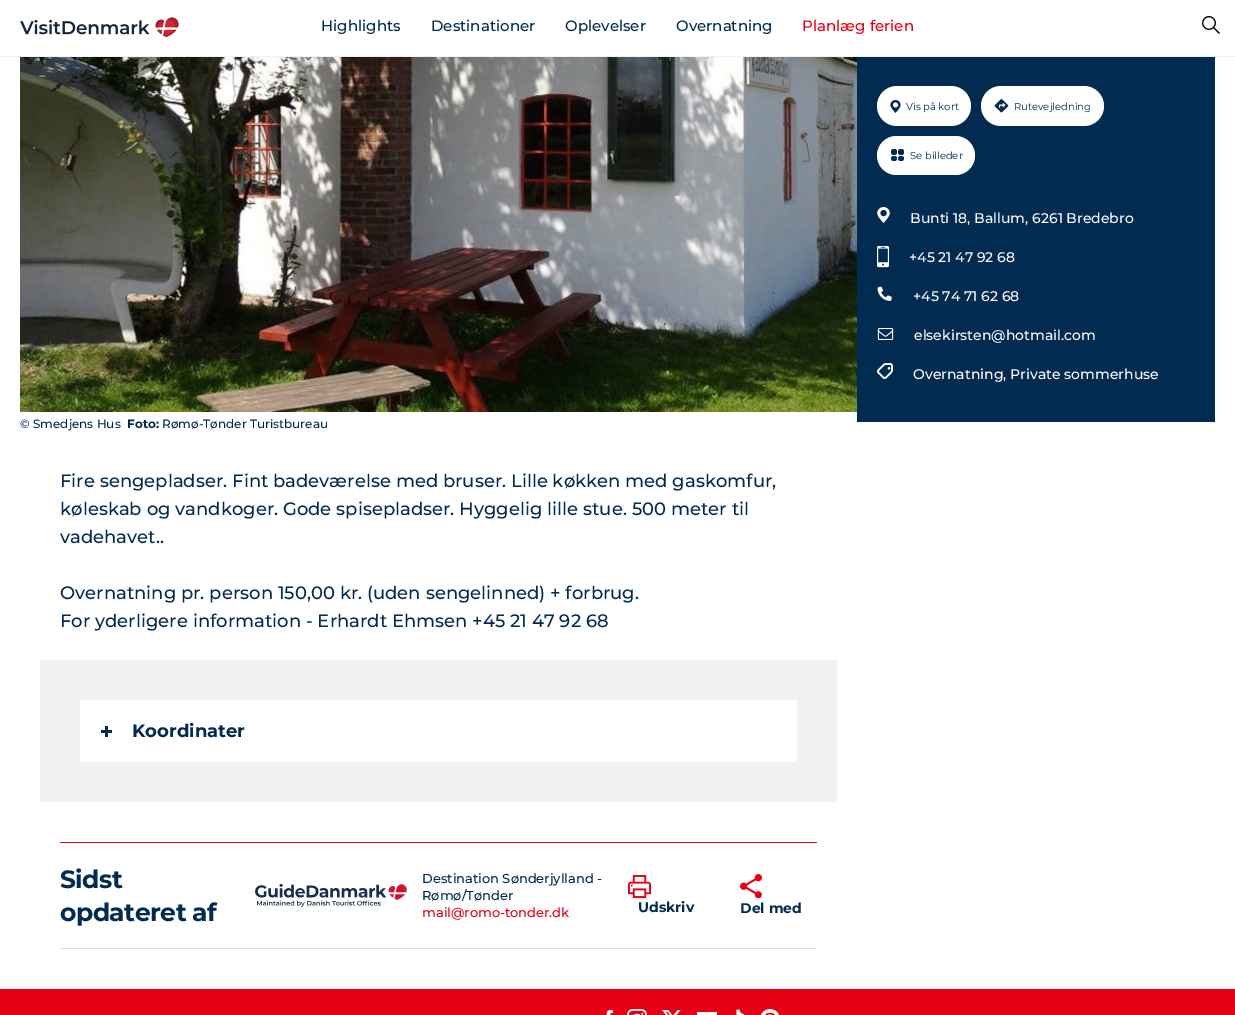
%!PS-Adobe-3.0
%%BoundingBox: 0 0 1235 1015
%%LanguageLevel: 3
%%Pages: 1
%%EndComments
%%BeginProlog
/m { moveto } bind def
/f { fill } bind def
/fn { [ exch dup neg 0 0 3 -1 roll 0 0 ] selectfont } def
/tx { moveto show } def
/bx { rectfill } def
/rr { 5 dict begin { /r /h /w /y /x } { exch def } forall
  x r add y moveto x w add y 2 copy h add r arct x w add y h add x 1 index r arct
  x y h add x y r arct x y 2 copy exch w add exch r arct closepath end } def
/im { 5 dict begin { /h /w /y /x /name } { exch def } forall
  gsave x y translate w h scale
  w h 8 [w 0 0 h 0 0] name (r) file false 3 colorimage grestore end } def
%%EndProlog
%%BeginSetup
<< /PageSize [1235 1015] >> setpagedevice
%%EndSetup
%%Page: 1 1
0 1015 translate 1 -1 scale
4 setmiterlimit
1 setgray
0 0 1235 1015 bx
0.941 0.945 0.953 setrgbcolor
0 56 1235 1 bx
(image0.raw) 20 17 159 20 im
/Montserrat-Medium 15 fn
0.008 0.169 0.322 setrgbcolor
(Highlights) 321 31 tx
(Destinationer) 431 31 tx
(Oplevelser) 565 31 tx
(Overnatning) 676 31 tx
0.906 0 0.075 setrgbcolor
(Planlæg ferien) 802 31 tx
(image1.raw) 1202 16 18 18 im
0.008 0.169 0.322 setrgbcolor
857 57 358 365 bx
1 setgray
877 86 94 40 20 rr f
(image2.raw) 890 100 11 13 im
/Montserrat-Regular 10 fn
0.008 0.169 0.322 setrgbcolor
(Vis på kort) 906 110 tx
1 setgray
981 86 123 40 20 rr f
(image3.raw) 994 99 15 14 im
0.008 0.169 0.322 setrgbcolor
(Rutevejledning) 1014 110 tx
1 setgray
877 136 98 39 19.5 rr f
(image4.raw) 891 149 13 12 im
0.008 0.169 0.322 setrgbcolor
(Se billeder) 910 159 tx
(image5.raw) 877 207 13 16 im
/Montserrat-Medium 14 fn
1 setgray
(Bunti 18, Ballum, 6261 Bredebro) 910 223 tx
(image6.raw) 877 246 12 22 im
(+45 21 47 92 68) 909 262 tx
(image7.raw) 877 286 15 15 im
(+45 74 71 62 68) 913 301 tx
(image8.raw) 877 328 17 12 im
(elsekirsten@hotmail.com) 914 340 tx
(image9.raw) 877 363 16 16 im
(Overnatning, Private sommerhuse) 913 379 tx
(image10.raw) 20 57 837 355 im
/Montserrat-Medium 12 fn
0.008 0.169 0.322 setrgbcolor
(© Smedjens Hus) 20 428 tx
/Montserrat-Bold 12 fn
(Foto:) 127 428 tx
/Montserrat-Medium 12 fn
(Rømø-Tønder Turistbureau) 162 428 tx
/Montserrat-Medium 18 fn
(Fire sengepladser. Fint badeværelse med bruser. Lille køkken med gaskomfur,) 60 487 tx
(køleskab og vandkoger. Gode spisepladser. Hyggelig lille stue. 500 meter til) 60 515 tx
(vadehavet..) 60 543 tx
(Overnatning pr. person 150,00 kr. \(uden sengelinned\) + forbrug.) 60 599 tx
(For yderligere information - Erhardt Ehmsen +45 21 47 92 68) 60 627 tx
0.937 0.945 0.953 setrgbcolor
40 660 797 142 bx
1 setgray
80 700 717 62 bx
0.008 0.169 0.322 setrgbcolor
101 730 11 3 bx
105 726 3 11 bx
/Montserrat-Bold 18 fn
(Koordinater) 132 737 tx
0.906 0 0.075 setrgbcolor
60 842 757 1 bx
0.871 0.863 0.855 setrgbcolor
60 948 757 1 bx
/Montserrat-Bold 25 fn
0.008 0.169 0.322 setrgbcolor
60 888 m -0.5 0 (Sidst) ashow
60 921 m -0.5 0 (opdateret af) ashow
(image11.raw) 255 884 152 23 im
/Montserrat-Medium 13 fn
(Destination Sønderjylland -) 422 883 tx
(Rømø/Tønder) 422 900 tx
0.906 0 0.075 setrgbcolor
(mail@romo-tonder.dk) 422 917 tx
(image12.raw) 628 875 23 23 im
/Montserrat-Bold 14 fn
0.008 0.169 0.322 setrgbcolor
(Udskriv) 638 912 tx
(image13.raw) 740 874 22 24 im
(Del med) 740 913 tx
0.906 0 0.075 setrgbcolor
0 989 1235 26 bx
(image14.raw) 606 1010 7 5 im
(image15.raw) 627 1009 20 6 im
(image16.raw) 662 1010 19 5 im
1 setgray
697 1012 20 3 bx
(image17.raw) 736 1009 9 6 im
(image18.raw) 761 1009 18 6 im
showpage
%%EOF
